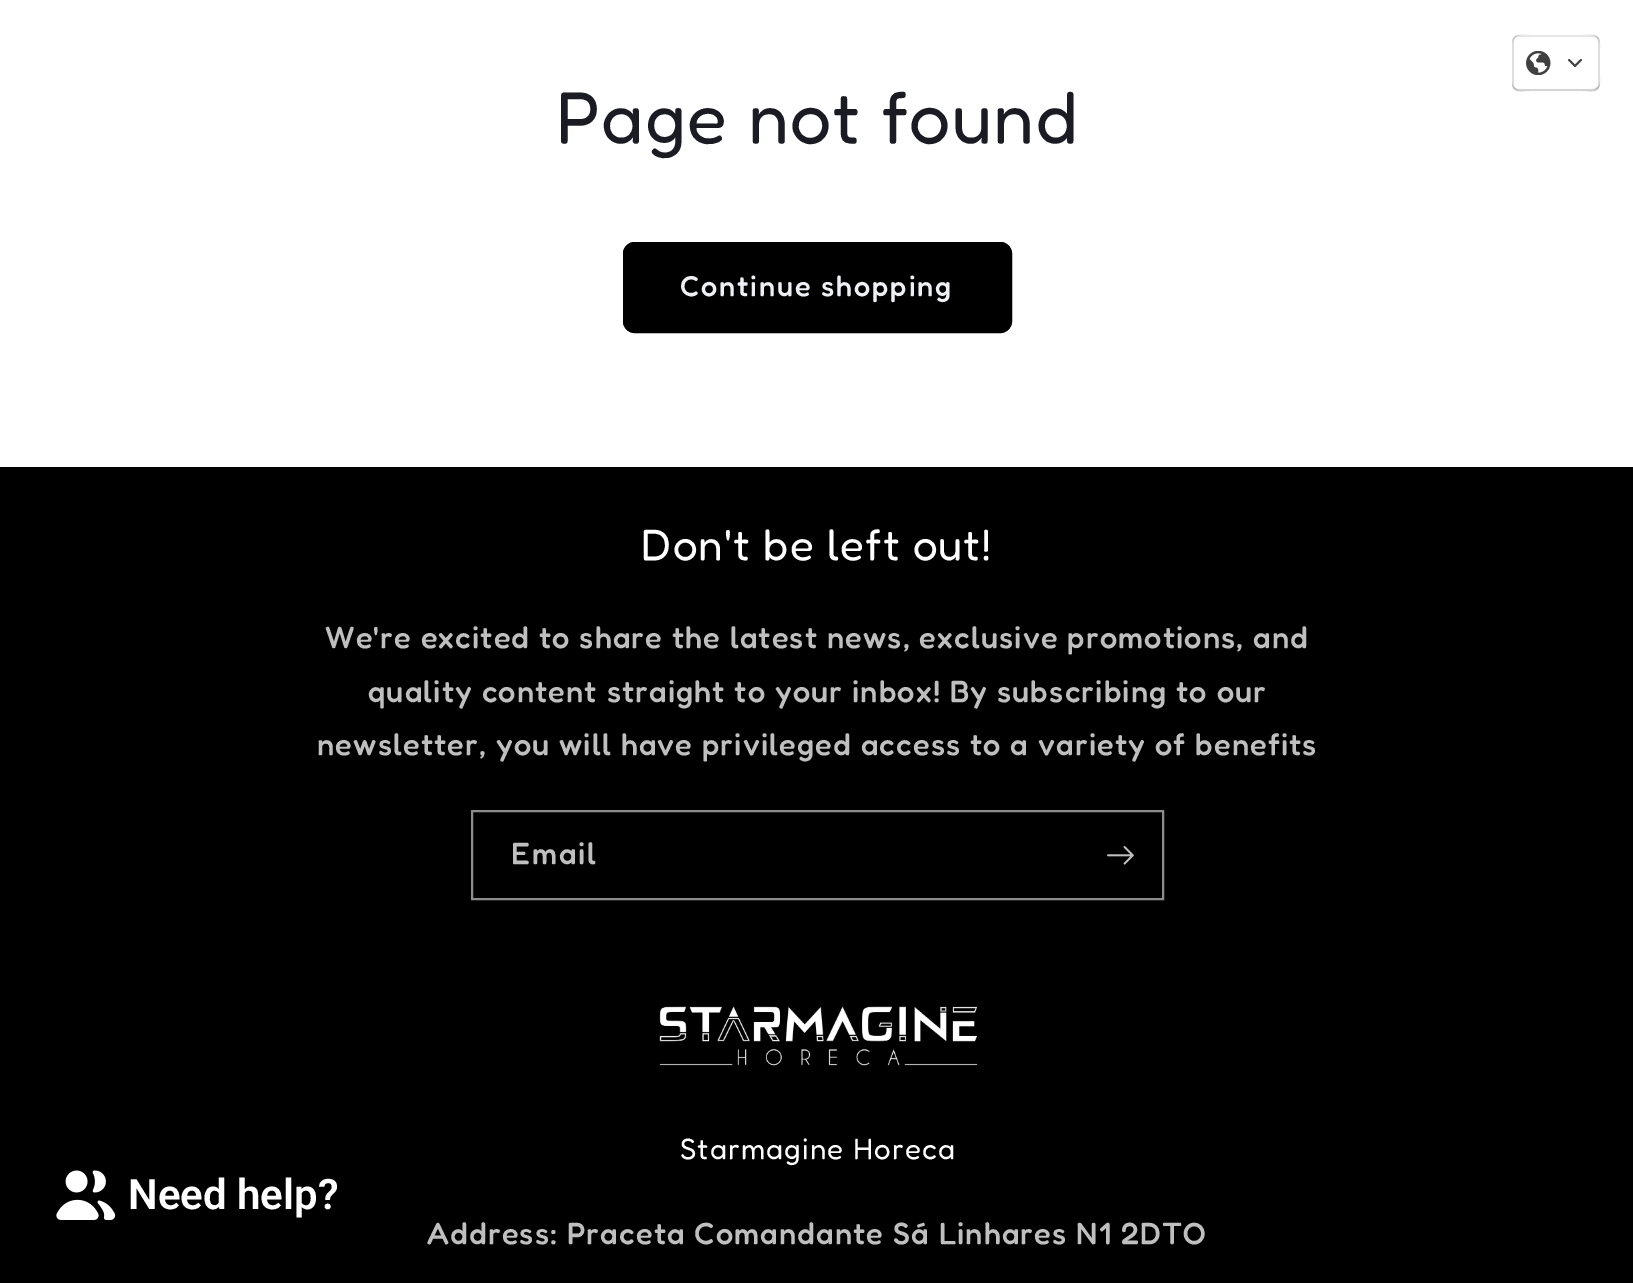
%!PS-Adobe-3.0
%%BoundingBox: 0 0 1633 1283
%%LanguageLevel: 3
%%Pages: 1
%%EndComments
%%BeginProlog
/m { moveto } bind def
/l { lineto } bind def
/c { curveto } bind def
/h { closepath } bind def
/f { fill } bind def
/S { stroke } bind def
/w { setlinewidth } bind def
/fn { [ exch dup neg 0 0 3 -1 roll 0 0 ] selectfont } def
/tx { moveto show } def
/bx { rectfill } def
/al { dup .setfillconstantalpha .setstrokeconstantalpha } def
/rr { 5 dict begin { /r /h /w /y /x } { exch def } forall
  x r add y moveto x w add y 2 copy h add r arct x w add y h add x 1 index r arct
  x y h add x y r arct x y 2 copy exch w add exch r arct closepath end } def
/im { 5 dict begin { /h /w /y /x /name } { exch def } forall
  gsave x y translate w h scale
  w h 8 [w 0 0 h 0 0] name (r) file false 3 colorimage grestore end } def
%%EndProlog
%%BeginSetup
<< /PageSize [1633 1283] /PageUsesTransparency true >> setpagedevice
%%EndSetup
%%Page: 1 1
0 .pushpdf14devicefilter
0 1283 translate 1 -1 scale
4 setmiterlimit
1 setgray
0 0 1633 1283 bx
0.902 setgray
1519 37 m 1592 37 l 1596 37 1600 40 1600 44 c 1600 32 1590 35 1581 35 c 1531 35 l 1522 35 1512 32 1512 44 c 1512 40 1515 37 1519 37 c h f
0.831 setgray
1512 82 m 1512 94 1522 91 1531 91 c 1581 91 l 1590 91 1600 94 1600 82 c 1600 86 1596 89 1592 89 c 1519 89 l 1515 89 1512 86 1512 82 c h f
0.13 al
0 setgray
1591 91 m 1601 91 1600 85 1600 77 c 1600 49 l 1600 41 1601 35 1591 35 c 1595 35 1598 38 1598 42 c 1598 84 l 1598 88 1595 91 1591 91 c h f
1519 35 m 1515 35 1512 38 1512 42 c 1512 84 l 1512 88 1515 91 1519 91 c 1521 91 l 1517 91 1514 88 1514 84 c 1514 42 l 1514 38 1517 35 1521 35 c h f
1 al
(image0.raw) 1526 51 25 24 im
(image1.raw) 1568 59 14 8 im
/Fredoka-Regular 73.5 fn
0.106 0.11 0.137 setrgbcolor
556 143 m 1.1 0 (Page not found) ashow
0 setgray
623 242 389 91 12 rr f
2 w
624 243 387 89 11 rr S
/Fredoka-Medium 28.9 fn
0.937 0.941 0.961 setrgbcolor
680 296 m 1.9 0 (Continue shopping) ashow
0 setgray
0 467 1633 816 bx
/Fredoka-Regular 44 fn
1 setgray
641 560 m 1.1 0 (Don't be left out!) ashow
/Fredoka-Medium 30.8 fn
0.749 setgray
325 648 m 1.15 0 (We're excited to share the latest news, exclusive promotions, and) ashow
368 702 m 1.15 0 (quality content straight to your inbox! By subscribing to our) ashow
317 755 m 1.15 0 (newsletter, you will have privileged access to a variety of benefits) ashow
0.549 setgray
472 811 691 88 rectstroke
0.749 setgray
511 864 m 1.9 0 (Email) ashow
(image2.raw) 1107 846 27 19 im
(image3.raw) 56 1170 60 50 im
/Roboto-SemiBold 42 fn
1 setgray
(Need help?) 128 1209 tx
(image4.raw) 659 1006 319 60 im
/Fredoka-Regular 29.5 fn
680 1159 m 1.1 0 (Starmagine Horeca) ashow
/Fredoka-Medium 30.8 fn
0.749 setgray
427 1244 m 1.15 0 (Address: Praceta Comandante Sá Linhares N1 2DTO) ashow
.poppdf14devicefilter showpage
%%EOF
